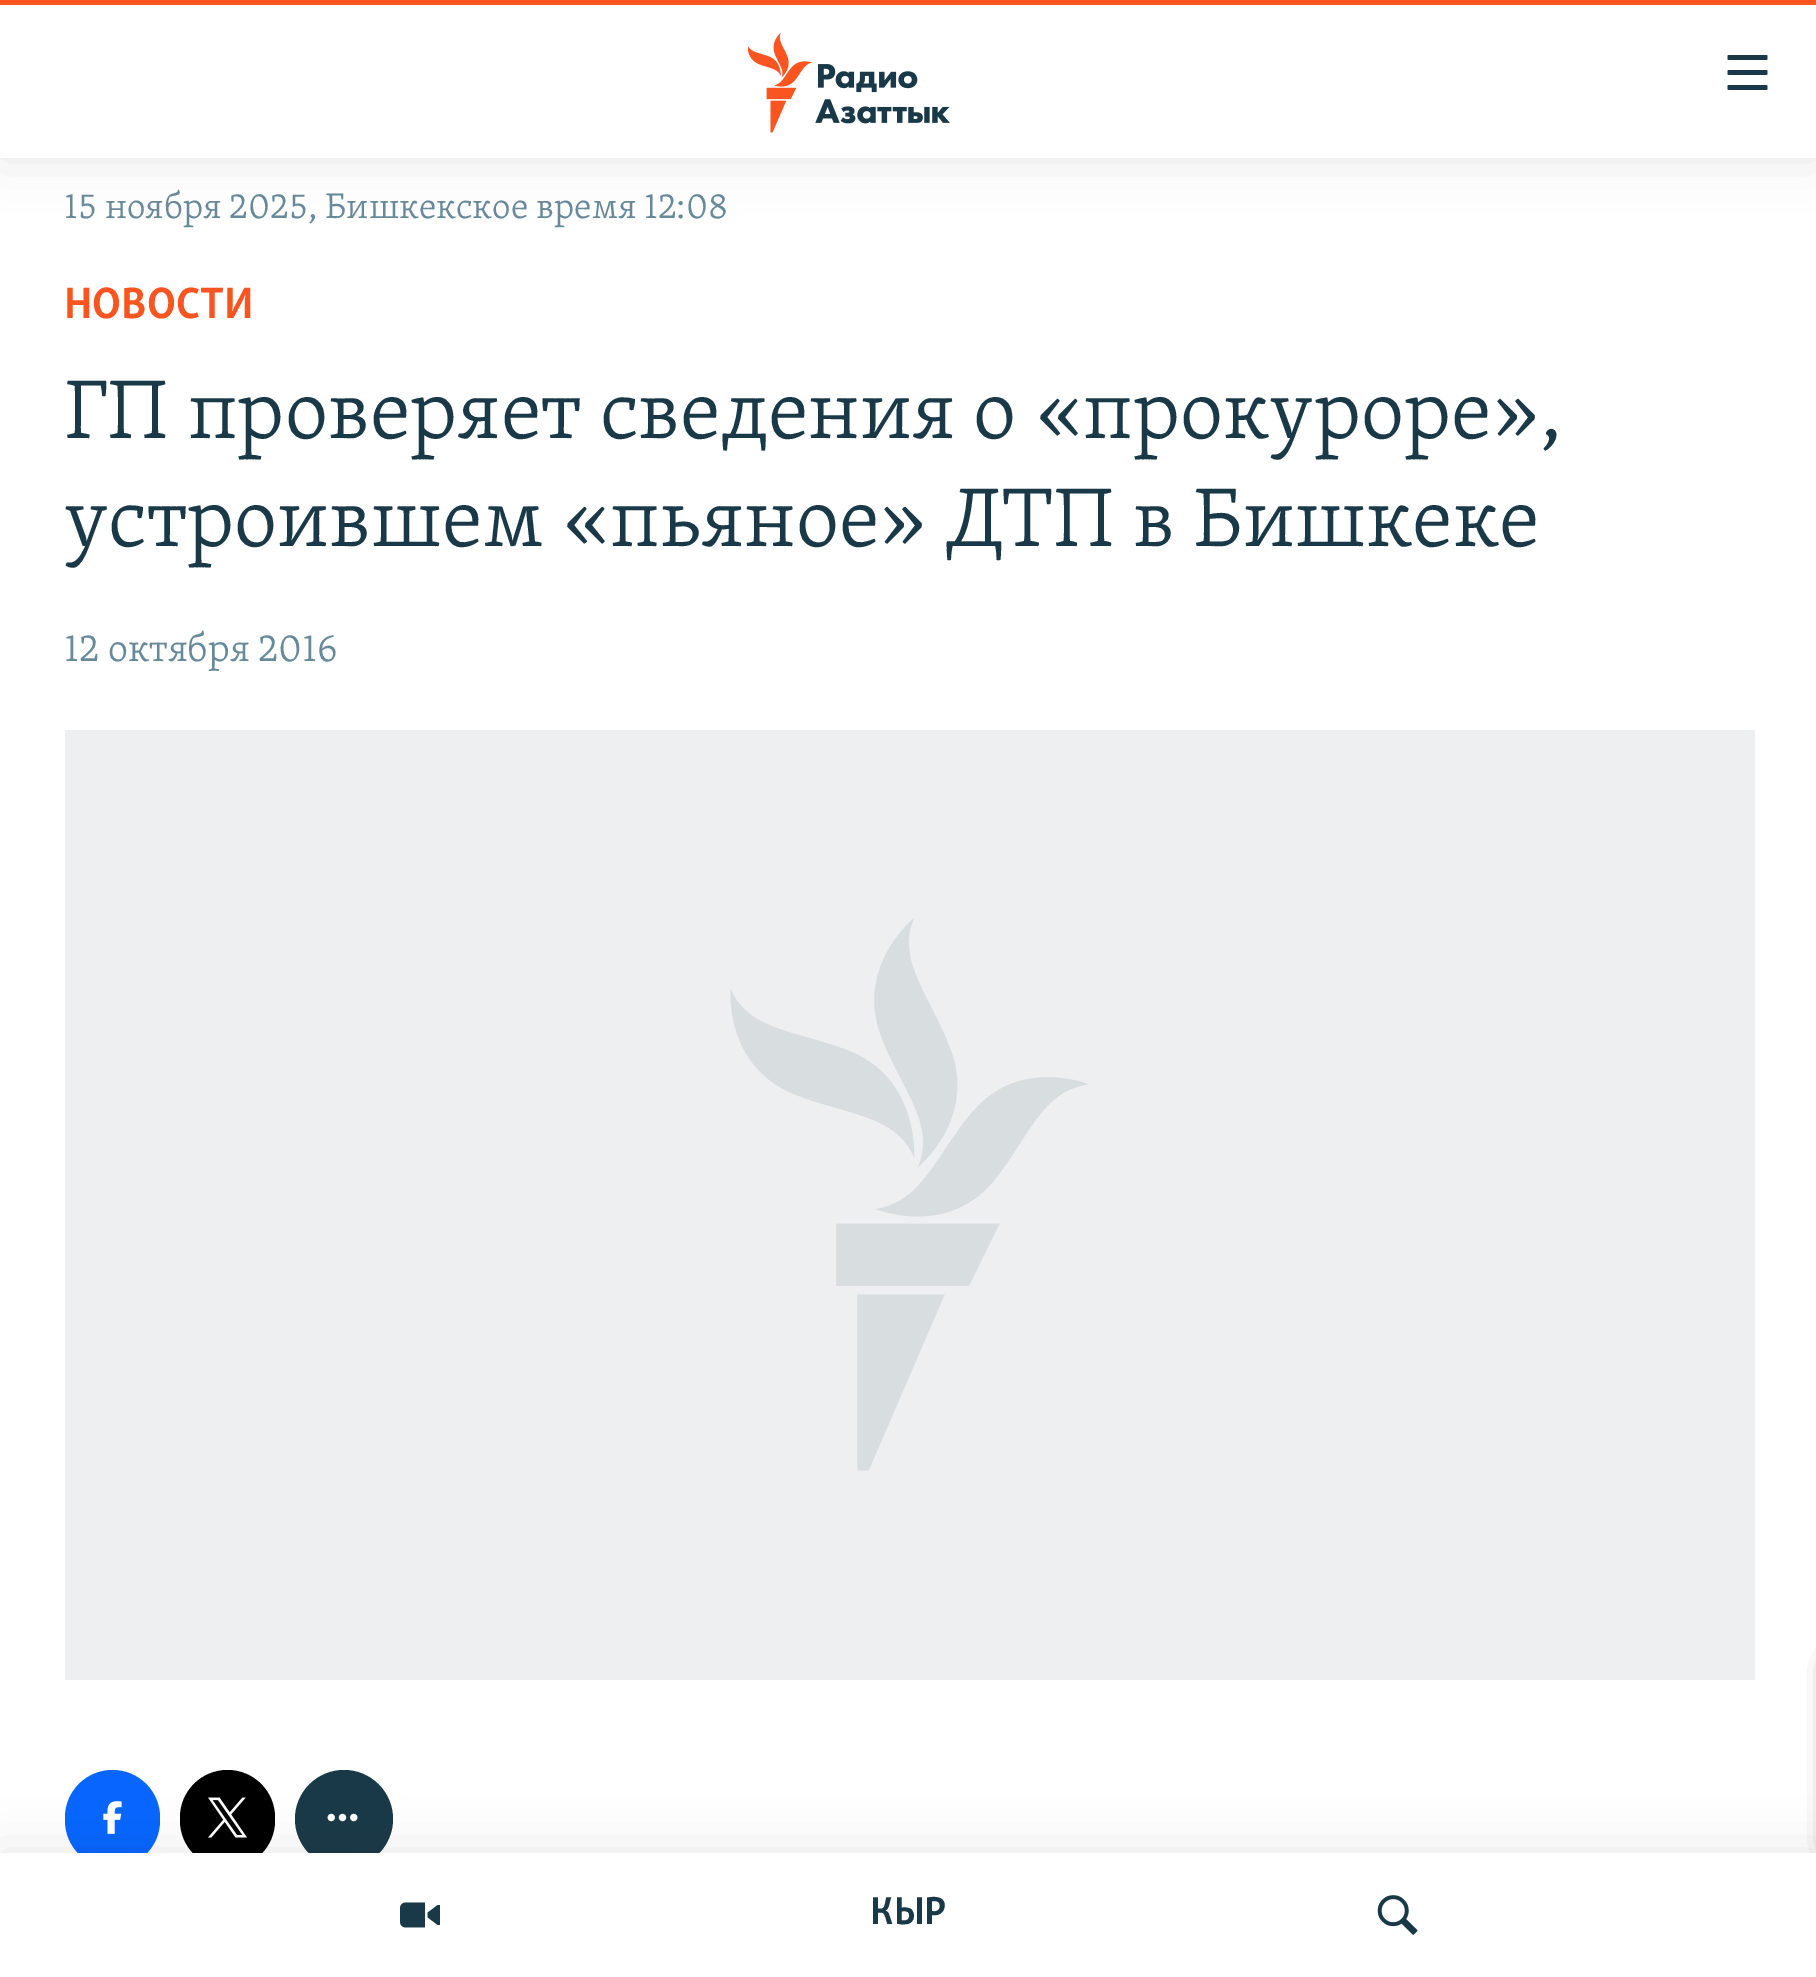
%!PS-Adobe-3.0
%%BoundingBox: 0 0 1816 1977
%%LanguageLevel: 3
%%Pages: 1
%%EndComments
%%BeginProlog
/f { fill } bind def
/fn { [ exch dup neg 0 0 3 -1 roll 0 0 ] selectfont } def
/tx { moveto show } def
/bx { rectfill } def
/al { dup .setfillconstantalpha .setstrokeconstantalpha } def
/ci { newpath 0 360 arc closepath } def
/rr { 5 dict begin { /r /h /w /y /x } { exch def } forall
  x r add y moveto x w add y 2 copy h add r arct x w add y h add x 1 index r arct
  x y h add x y r arct x y 2 copy exch w add exch r arct closepath end } def
/sh { 12 dict begin { /a /b /q /h /w /y /x } { exch def } forall gsave /was 0 def
  9 -2 -9 { dup b mul 4 div /e exch def 1 sub .425 mul 2.718 exch exp 1 add a .99 .min exch div /now exch def
    1 1 now sub 1 was sub div sub al /was now def
    w h .min e 2 mul add 0 gt { x e sub y e sub w e 2 mul add h e 2 mul add
      q e add b .6 mul add w h .min 2 div e add .min 0 .max rr fill } if } for grestore end } def
/im { 5 dict begin { /h /w /y /x /name } { exch def } forall
  gsave x y translate w h scale
  w h 8 [w 0 0 h 0 0] name (r) file false 3 colorimage grestore end } def
%%EndProlog
%%BeginSetup
<< /PageSize [1816 1977] /PageUsesTransparency true >> setpagedevice
%%EndSetup
%%Page: 1 1
0 .pushpdf14devicefilter
0 1977 translate 1 -1 scale
4 setmiterlimit
1 setgray
0 0 1816 1977 bx
/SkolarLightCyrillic-Light 36.6 fn
0.404 0.541 0.608 setrgbcolor
(15 ноября 2025, Бишкекское время 12:08) 64 218 tx
/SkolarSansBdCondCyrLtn-Bold 45 fn
0.98 0.329 0.125 setrgbcolor
(НОВОСТИ) 64 318 tx
/SkolarLightCyrillic-Light 85.5 fn
0.102 0.224 0.282 setrgbcolor
(ГП проверяет сведения о «прокуроре»,) 64 438 tx
(устроившем «пьяное» ДТП в Бишкеке) 64 546 tx
/SkolarLightCyrillic-Light 39.5 fn
0.404 0.541 0.608 setrgbcolor
(12 октября 2016) 64 661 tx
0.929 0.937 0.941 setrgbcolor
65 730 1690 950 bx
(image0.raw) 730 918 359 553 im
0.031 0.4 1 setrgbcolor
65 1770 95 98 47.5 rr f
(image1.raw) 103 1801 19 33 im
0 setgray
180 1770 95 98 47.5 rr f
(image2.raw) 208 1797 39 41 im
0.102 0.224 0.282 setrgbcolor
344 1819 49 ci f
(image3.raw) 327 1813 31 9 im
0 setgray
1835 1658 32 195 13 12.5 0.85 sh
0 0 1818 158 0 25 0.1 sh
1 setgray
0 5 1816 153 bx
0.98 0.329 0.125 setrgbcolor
0 0 1816 5 bx
(image4.raw) 748 33 202 100 im
(image5.raw) 1727 55 41 35 im
0 setgray
0 1853 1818 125 0 25 0.1 sh
1 setgray
0 1853 1816 124 bx
(image6.raw) 400 1902 40 26 im
/SkolarSansBdCondCyrLtn-Bold 40 fn
0.102 0.224 0.282 setrgbcolor
(КЫР) 870 1924 tx
(image7.raw) 1377 1895 41 40 im
.poppdf14devicefilter showpage
%%EOF
